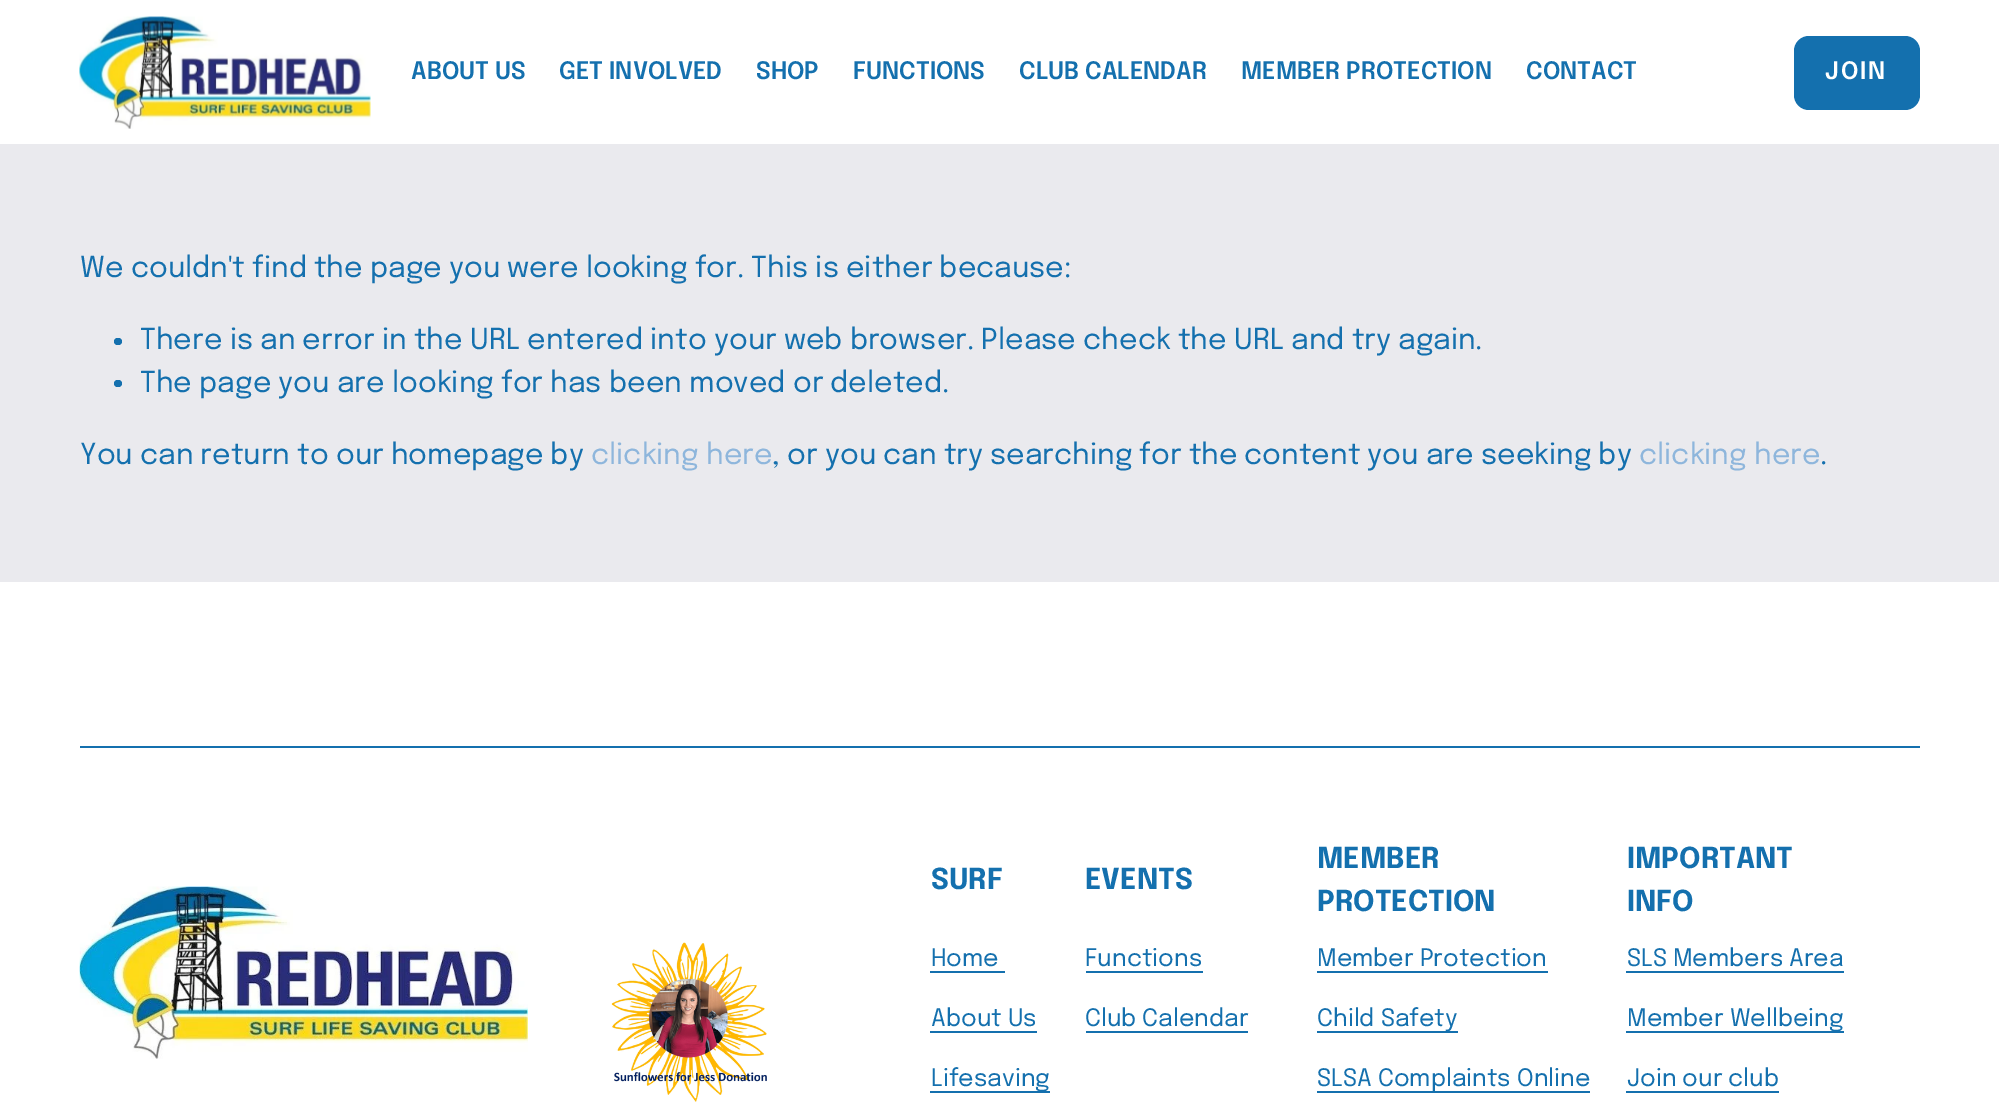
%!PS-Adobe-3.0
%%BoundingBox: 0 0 1999 1117
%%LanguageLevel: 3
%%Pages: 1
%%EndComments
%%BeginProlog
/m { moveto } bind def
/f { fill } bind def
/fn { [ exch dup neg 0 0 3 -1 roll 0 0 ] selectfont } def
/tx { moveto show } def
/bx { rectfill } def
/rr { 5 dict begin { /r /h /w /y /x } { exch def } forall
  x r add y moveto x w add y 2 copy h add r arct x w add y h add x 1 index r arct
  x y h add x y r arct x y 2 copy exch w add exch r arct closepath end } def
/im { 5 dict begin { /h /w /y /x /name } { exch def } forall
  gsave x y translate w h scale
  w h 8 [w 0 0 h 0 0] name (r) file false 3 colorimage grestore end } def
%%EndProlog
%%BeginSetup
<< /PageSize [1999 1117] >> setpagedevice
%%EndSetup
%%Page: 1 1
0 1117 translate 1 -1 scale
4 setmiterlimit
0.918 0.918 0.933 setrgbcolor
0 0 1999 1117 bx
1 setgray
0 0 1999 144 bx
(image0.raw) 79 16 292 113 im
/Epilogue-SemiBold 24 fn
0.078 0.439 0.682 setrgbcolor
(ABOUT US) 411 79 tx
(GET INVOLVED) 559 79 tx
(SHOP) 756 79 tx
(FUNCTIONS) 853 79 tx
(CLUB CALENDAR) 1019 79 tx
(MEMBER PROTECTION) 1241 79 tx
(CONTACT) 1526 79 tx
1794 36 126 74 15 rr f
1 setgray
1825 79 m 2 0 (JOIN) ashow
/Epilogue-Regular 28.8 fn
0.078 0.439 0.682 setrgbcolor
(We couldn't find the page you were looking for. This is either because:) 80 277 tx
114 338 8 7 3.5 rr f
(There is an error in the URL entered into your web browser. Please check the URL and try again.) 140 349 tx
114 380 8 7 3.5 rr f
(The page you are looking for has been moved or deleted.) 140 392 tx
(You can return to our homepage by) 80 464 tx
0.557 0.714 0.863 setrgbcolor
(clicking here) 591 464 tx
0.078 0.439 0.682 setrgbcolor
(, or you can try searching for the) 772 464 tx
(content you are seeking by) 1244 464 tx
0.557 0.714 0.863 setrgbcolor
(clicking here) 1639 464 tx
0.078 0.439 0.682 setrgbcolor
(.) 1820 464 tx
1 setgray
0 582 1999 535 bx
0.078 0.439 0.682 setrgbcolor
80 746 1840 2 bx
/Epilogue-Bold 28.8 fn
(SURF) 931 889 tx
(EVENTS) 1085 889 tx
(MEMBER) 1317 868 tx
(PROTECTION) 1317 911 tx
(IMPORTANT) 1627 868 tx
(INFO) 1627 911 tx
(image1.raw) 79 886 449 173 im
(image2.raw) 611 942 156 160 im
/Epilogue-Regular 24 fn
(Home) 931 966 tx
930 971 75 2 bx
(About Us) 931 1026 tx
930 1031 107 2 bx
930 1091 120 2 bx
(Lifesaving) 931 1086 tx
(Functions) 1085 966 tx
1086 971 117 2 bx
(Club Calendar) 1085 1026 tx
1086 1031 162 2 bx
(Member Protection) 1317 966 tx
1317 971 231 2 bx
1317 1031 141 2 bx
(Child Safety) 1317 1026 tx
1317 1091 273 2 bx
(SLSA Complaints Online) 1317 1086 tx
(SLS Members Area) 1627 966 tx
1626 971 218 2 bx
1626 1031 218 2 bx
(Member Wellbeing) 1627 1026 tx
(Join our club) 1627 1086 tx
1626 1091 153 2 bx
showpage
%%EOF
